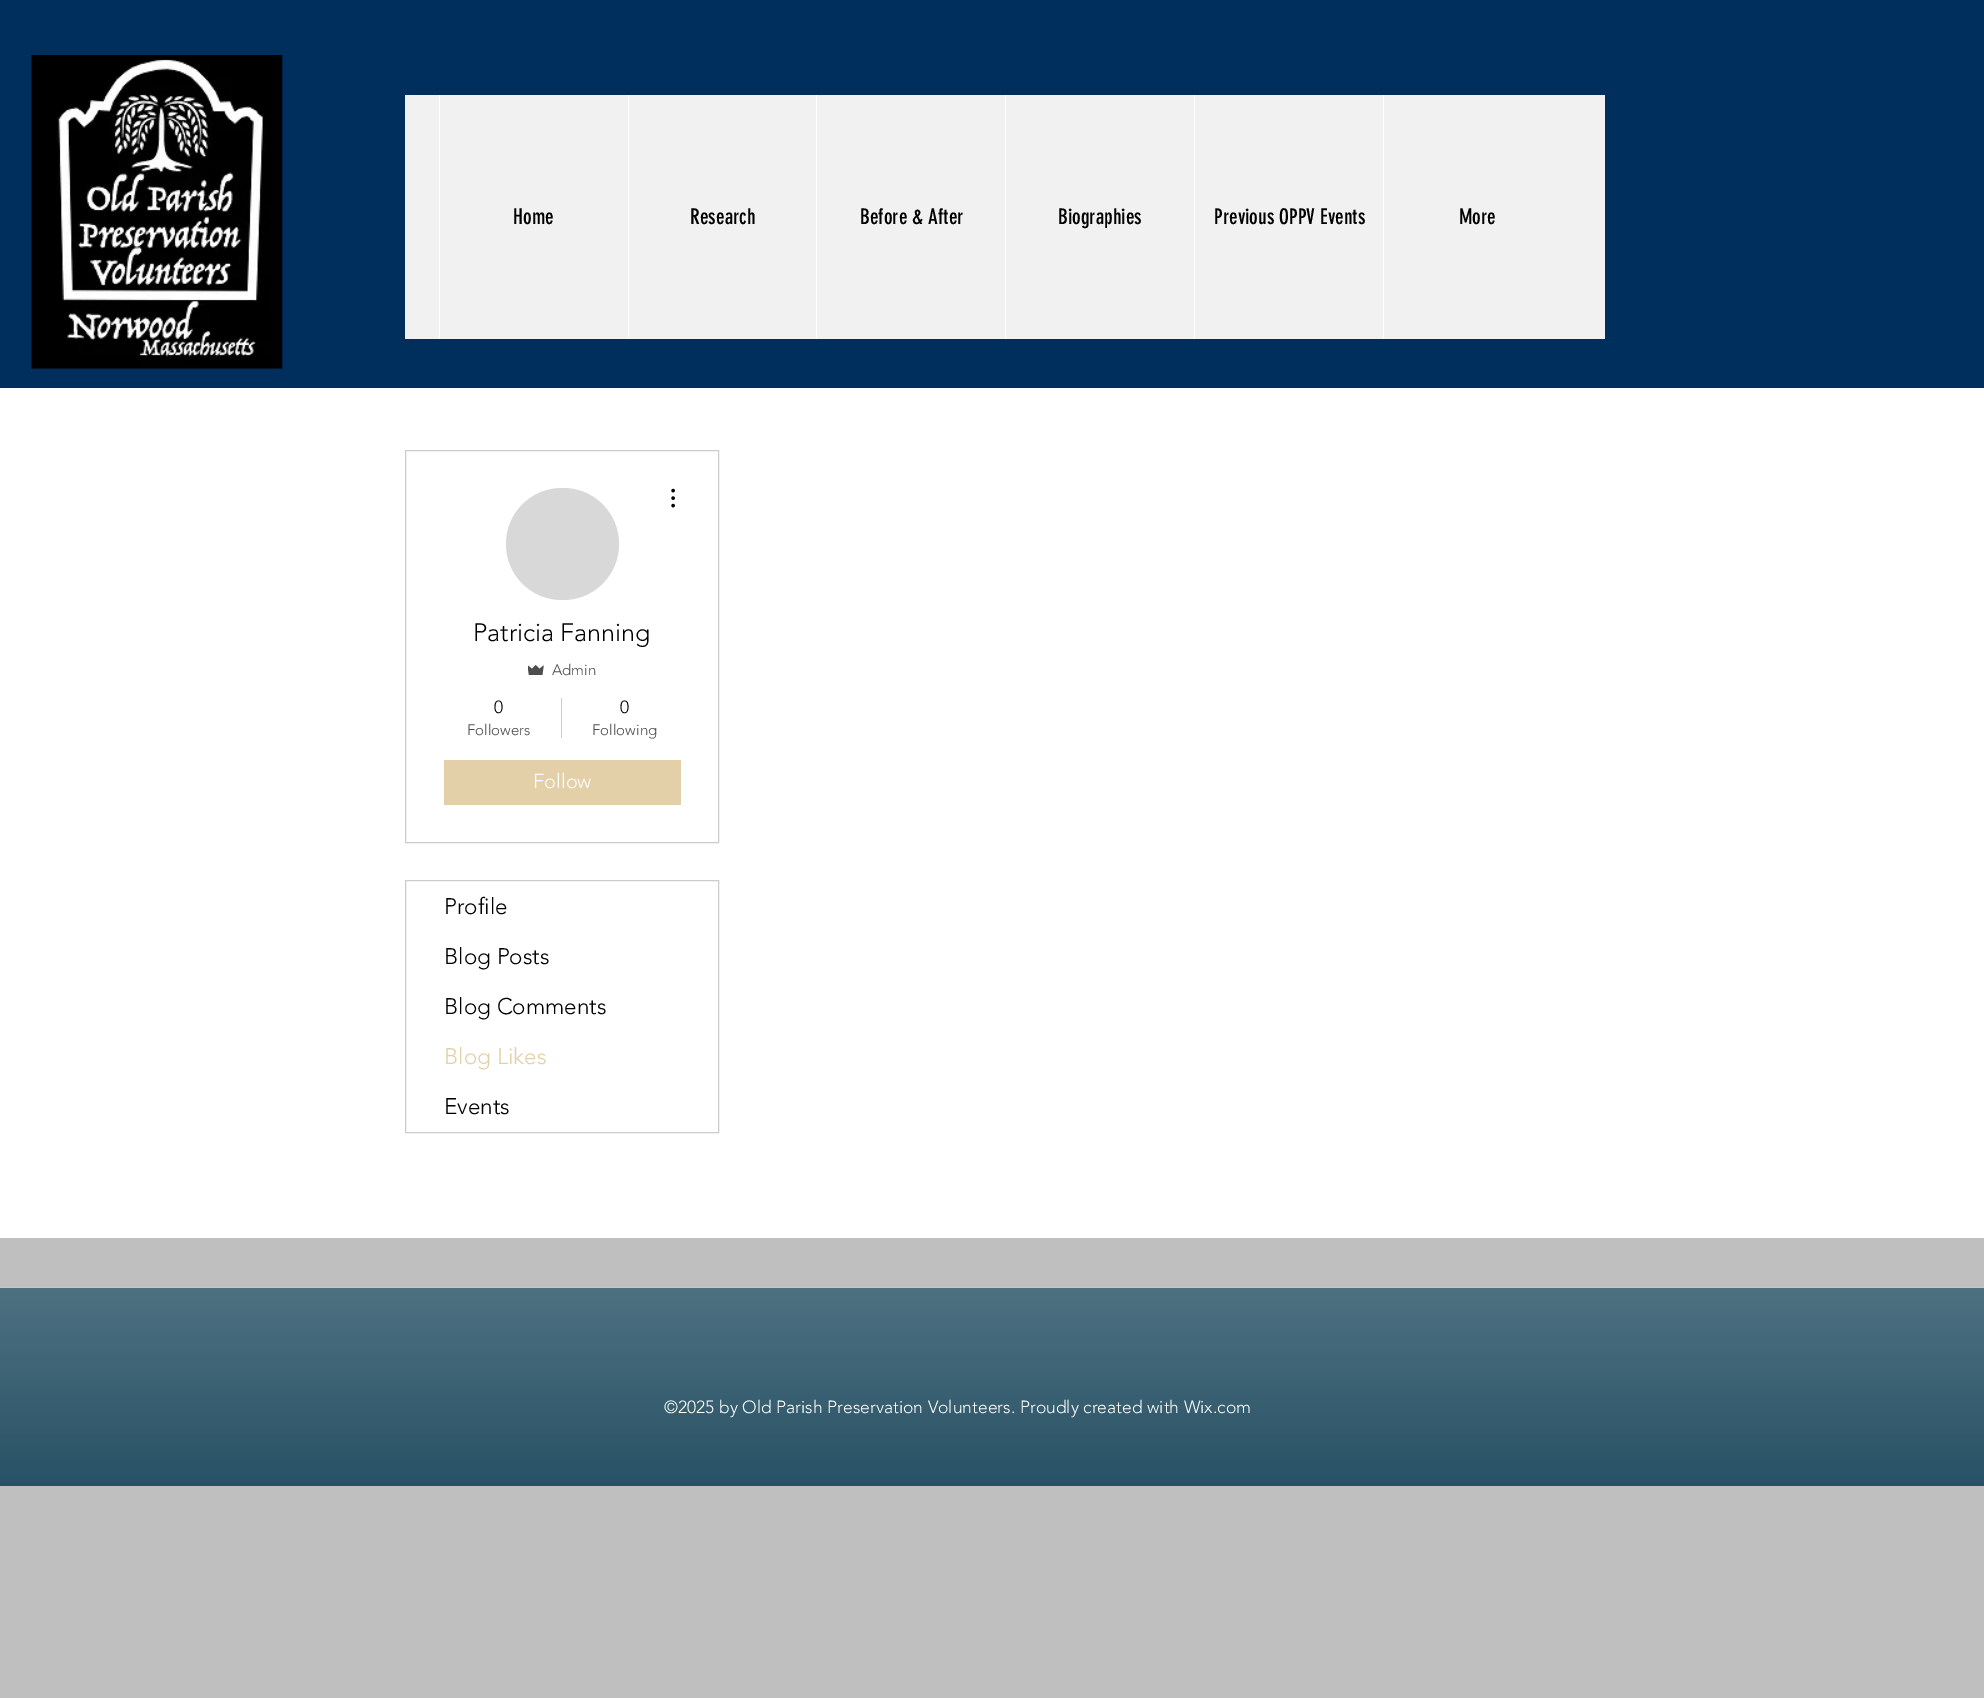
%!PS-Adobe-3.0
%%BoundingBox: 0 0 1984 1698
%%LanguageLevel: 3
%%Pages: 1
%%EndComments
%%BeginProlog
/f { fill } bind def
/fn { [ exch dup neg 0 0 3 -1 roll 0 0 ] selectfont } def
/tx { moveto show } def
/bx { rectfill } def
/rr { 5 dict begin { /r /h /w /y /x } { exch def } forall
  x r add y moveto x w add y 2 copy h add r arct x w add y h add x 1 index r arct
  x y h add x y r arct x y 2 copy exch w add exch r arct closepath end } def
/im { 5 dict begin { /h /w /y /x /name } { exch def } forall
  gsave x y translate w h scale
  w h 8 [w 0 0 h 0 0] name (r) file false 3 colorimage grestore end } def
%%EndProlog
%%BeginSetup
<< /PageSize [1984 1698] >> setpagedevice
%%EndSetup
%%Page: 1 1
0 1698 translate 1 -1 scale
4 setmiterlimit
0.749 setgray
0 0 1984 1698 bx
0 0.18 0.365 setrgbcolor
0 0 1984 388 bx
(image0.raw) 31 55 252 314 im
0.945 setgray
405 95 1200 244 bx
1 setgray
439 95 1 244 bx
/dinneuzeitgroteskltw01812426-Regular 21.25 fn
0 setgray
(Home) 513 224 tx
1 setgray
628 95 1 244 bx
0 setgray
(Research) 690 224 tx
1 setgray
816 95 1 244 bx
0 setgray
(Before & After) 860 224 tx
1 setgray
1005 95 1 244 bx
0 setgray
(Biographies) 1058 224 tx
1 setgray
1194 95 1 244 bx
0 setgray
(Previous OPPV Events) 1214 224 tx
1 setgray
1383 95 1 244 bx
0 setgray
(More) 1459 224 tx
1 setgray
0 388 1984 850 bx
0.8 setgray
405.5 450.5 313 392 rectstroke
0.847 setgray
506 488 113 112 56 rr f
(image1.raw) 671 488 4 20 im
/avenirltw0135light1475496-Light 25 fn
0 setgray
(Patricia Fanning) 473 641 tx
(image2.raw) 528 665 16 10 im
/avenirltw0135light1475496-Light 15 fn
0.302 setgray
(Admin) 552 675 tx
/avenirltw0135light1475496-Light 17.5 fn
0 setgray
(0) 494 713 tx
/avenirltw0135light1475496-Light 15 fn
0.302 setgray
(Followers) 467 735 tx
0.8 setgray
561 698 1 40 bx
/avenirltw0135light1475496-Light 17.5 fn
0 setgray
(0) 620 713 tx
/avenirltw0135light1475496-Light 15 fn
0.302 setgray
(Following) 592 735 tx
0.89 0.816 0.659 setrgbcolor
444 760 237 45 bx
/avenirltw0135light1475496-Light 20 fn
1 setgray
(Follow) 533 788 tx
0.8 setgray
405.5 880.5 313 252 rectstroke
/avenirltw0135light1475496-Light 22.5 fn
0 setgray
(Profile) 444 914 tx
(Blog Posts) 444 964 tx
(Blog Comments) 444 1014 tx
0.89 0.816 0.659 setrgbcolor
(Blog Likes) 444 1064 tx
0 setgray
(Events) 444 1114 tx
0.063 0.247 0.329 setrgbcolor
0 1288 1984 198 bx
(image3.raw) 0 1287 1984 199 im
/avenirltw0135light1475496-Light 17.5 fn
1 setgray
(©2025 by Old Parish Preservation Volunteers. Proudly created with Wix.com) 664 1413 tx
showpage
%%EOF
